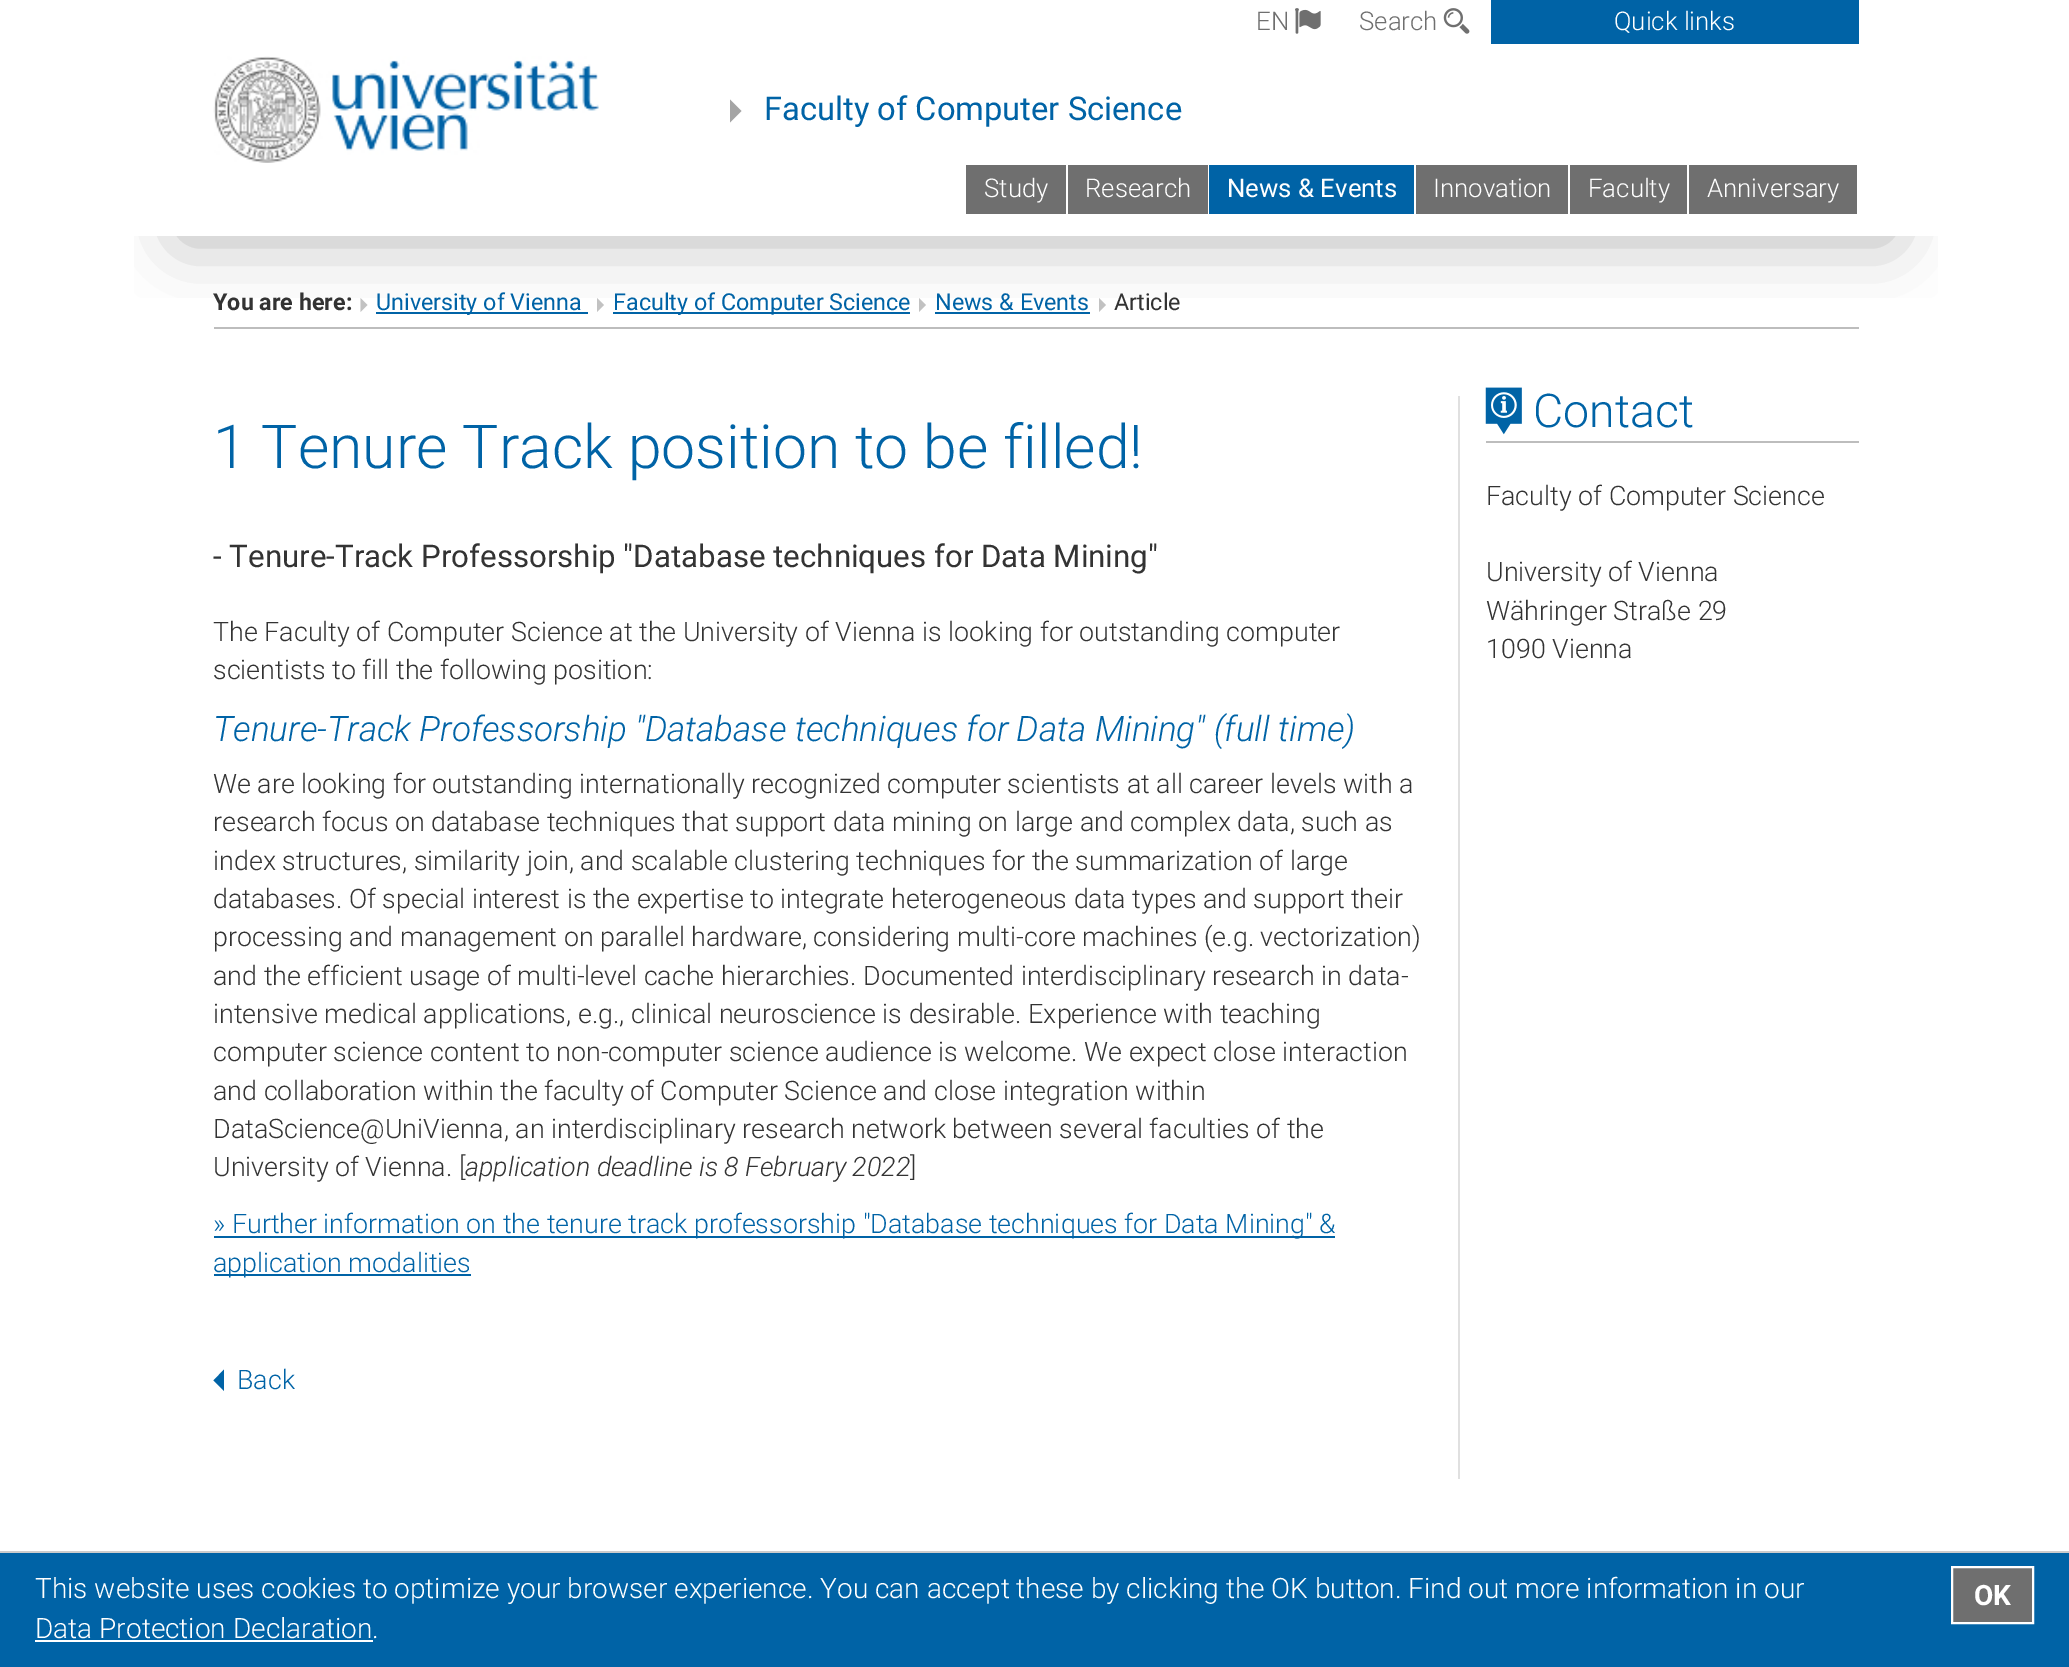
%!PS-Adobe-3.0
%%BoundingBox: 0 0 2069 1667
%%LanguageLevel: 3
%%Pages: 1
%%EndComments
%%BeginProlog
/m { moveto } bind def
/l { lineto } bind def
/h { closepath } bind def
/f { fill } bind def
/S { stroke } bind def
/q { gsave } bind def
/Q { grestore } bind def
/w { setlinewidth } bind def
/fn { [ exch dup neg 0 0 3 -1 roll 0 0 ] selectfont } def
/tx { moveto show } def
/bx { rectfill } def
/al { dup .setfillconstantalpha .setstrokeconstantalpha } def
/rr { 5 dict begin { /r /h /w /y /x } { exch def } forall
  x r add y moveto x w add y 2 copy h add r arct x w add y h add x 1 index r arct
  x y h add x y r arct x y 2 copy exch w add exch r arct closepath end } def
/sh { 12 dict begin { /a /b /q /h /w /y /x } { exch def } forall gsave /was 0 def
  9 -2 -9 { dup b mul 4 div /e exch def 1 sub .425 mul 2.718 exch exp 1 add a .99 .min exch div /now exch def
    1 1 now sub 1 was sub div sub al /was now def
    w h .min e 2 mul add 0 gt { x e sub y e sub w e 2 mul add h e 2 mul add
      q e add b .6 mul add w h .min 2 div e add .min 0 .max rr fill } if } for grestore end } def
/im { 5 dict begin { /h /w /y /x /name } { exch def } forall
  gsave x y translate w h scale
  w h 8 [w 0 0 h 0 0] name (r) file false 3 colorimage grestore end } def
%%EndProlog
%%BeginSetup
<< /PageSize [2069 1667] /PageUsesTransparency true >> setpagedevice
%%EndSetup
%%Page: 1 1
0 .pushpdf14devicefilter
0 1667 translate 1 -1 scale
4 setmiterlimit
1 setgray
0 0 2069 1667 bx
0.761 setgray
360.5 298 m 360.5 312 l 367.5 305 l h f
0 0.388 0.651 setrgbcolor
376 312 212 2 bx
0.761 setgray
597 298 m 597 312 l 604 305 l h f
0 0.388 0.651 setrgbcolor
613 312 297 2 bx
0.761 setgray
919 298 m 919 312 l 926 305 l h f
0 0.388 0.651 setrgbcolor
935 312 155 2 bx
0.761 setgray
1099 298 m 1099 312 l 1106 305 l h f
0.741 setgray
214 327 1645 2 bx
q
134 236 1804 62 rectclip
0.275 setgray
180 25 1712 215 0 35 0.4 sh
Q
1 setgray
117 0 53 236 bx
1902 0 53 236 bx
/Roboto-Light 25.75 fn
0.435 setgray
(EN) 1256 30 tx
(image0.raw) 1295 8 26 26 im
(Search) 1359 30 tx
(image1.raw) 1443 8 27 26 im
0 0.388 0.651 setrgbcolor
1491 0 368 44 bx
1 setgray
(Quick links) 1614 30 tx
(image2.raw) 213 56 386 107 im
0.643 setgray
730 99.5 m 730 122.5 l 741.5 111 l h f
/Roboto-Regular 32.7 fn
0 0.388 0.651 setrgbcolor
(Faculty of Computer Science) 764 120 tx
0.435 setgray
966 165 100 49 bx
/Roboto-Light 25.75 fn
1 setgray
(Study) 984 197 tx
0.435 setgray
1068 165 140 49 bx
1 setgray
(Research) 1085 197 tx
0 0.388 0.651 setrgbcolor
1209 165 205 49 bx
/Roboto-Regular 25.75 fn
1 setgray
(News & Events) 1227 197 tx
0.435 setgray
1416 165 152 49 bx
/Roboto-Light 25.75 fn
1 setgray
(Innovation) 1433 197 tx
0.435 setgray
1570 165 117 49 bx
1 setgray
(Faculty) 1588 197 tx
0.435 setgray
1689 165 168 49 bx
1 setgray
(Anniversary) 1707 197 tx
/Roboto-Bold 23.3 fn
0.2 setgray
(You are here:) 213 310 tx
/Roboto-Regular 23.3 fn
0 0.388 0.651 setrgbcolor
(University of Vienna) 376 310 tx
(Faculty of Computer Science) 613 310 tx
(News & Events) 935 310 tx
0.2 setgray
(Article) 1114 310 tx
0.878 setgray
1458 396 2 1083 bx
/Roboto-Light 60.7 fn
0 0.388 0.651 setrgbcolor
(1 Tenure Track position to be filled!) 213 468 tx
/Roboto-Regular 31.25 fn
0.2 setgray
(- Tenure-Track Professorship "Database techniques for Data Mining") 213 567 tx
/Roboto-Light 26.85 fn
(The Faculty of Computer Science at the University of Vienna is looking for outstanding computer) 213 641 tx
(scientists to fill the following position:) 213 679 tx
/Roboto-LightItalic 35 fn
0 0.388 0.651 setrgbcolor
(Tenure-Track Professorship "Database techniques for Data Mining" \(full time\)) 213 741 tx
/Roboto-Light 26.85 fn
0.2 setgray
(We are looking for outstanding internationally recognized computer scientists at all career levels with a) 213 793 tx
(research focus on database techniques that support data mining on large and complex data, such as) 213 831 tx
(index structures, similarity join, and scalable clustering techniques for the summarization of large) 213 870 tx
(databases. Of special interest is the expertise to integrate heterogeneous data types and support their) 213 908 tx
(processing and management on parallel hardware, considering multi-core machines \(e.g. vectorization\)) 213 946 tx
(and the efficient usage of multi-level cache hierarchies. Documented interdisciplinary research in data-) 213 985 tx
(intensive medical applications, e.g., clinical neuroscience is desirable. Experience with teaching) 213 1023 tx
(computer science content to non-computer science audience is welcome. We expect close interaction) 213 1061 tx
(and collaboration within the faculty of Computer Science and close integration within) 213 1100 tx
(DataScience@UniVienna, an interdisciplinary research network between several faculties of the) 213 1138 tx
(University of Vienna. [) 213 1176 tx
/Roboto-LightItalic 26.85 fn
(application deadline is 8 February 2022) 465 1176 tx
/Roboto-Light 26.85 fn
(]) 910 1176 tx
0 0.388 0.651 setrgbcolor
214 1236 1121 2 bx
(» Further information on the tenure track professorship "Database techniques for Data Mining" &) 213 1233 tx
214 1274 257 2 bx
(application modalities) 213 1272 tx
(Back) 237 1389 tx
224 1369.5 m 224 1391 l 213.5 1380.5 l h f
0.741 setgray
1486 441 373 2 bx
(image3.raw) 1485 387 37 48 im
/Roboto-Light 46.5 fn
0 0.388 0.651 setrgbcolor
(Contact) 1533 427 tx
/Roboto-Light 26.85 fn
0.2 setgray
(Faculty of Computer Science) 1486 505 tx
(University of Vienna) 1486 581 tx
(Währinger Straße 29) 1486 620 tx
(1090 Vienna) 1486 658 tx
0 0.388 0.651 setrgbcolor
0 1553 2069 114 bx
0.8 setgray
0 1551 2069 2 bx
/Roboto-Light 28 fn
1 setgray
(This website uses cookies to optimize your browser experience. You can accept these by clicking the OK button. Find out more information in our) 35 1598 tx
(Data Protection Declaration.) 35 1638 tx
35 1640 338 2 bx
0.435 setgray
1952 1567 m 2033 1567 l 2033 1623 l 1952 1623 l h q f Q
1 setgray
2 w
S
/Roboto-Bold 28 fn
(OK) 1974 1605 tx
.poppdf14devicefilter showpage
%%EOF
